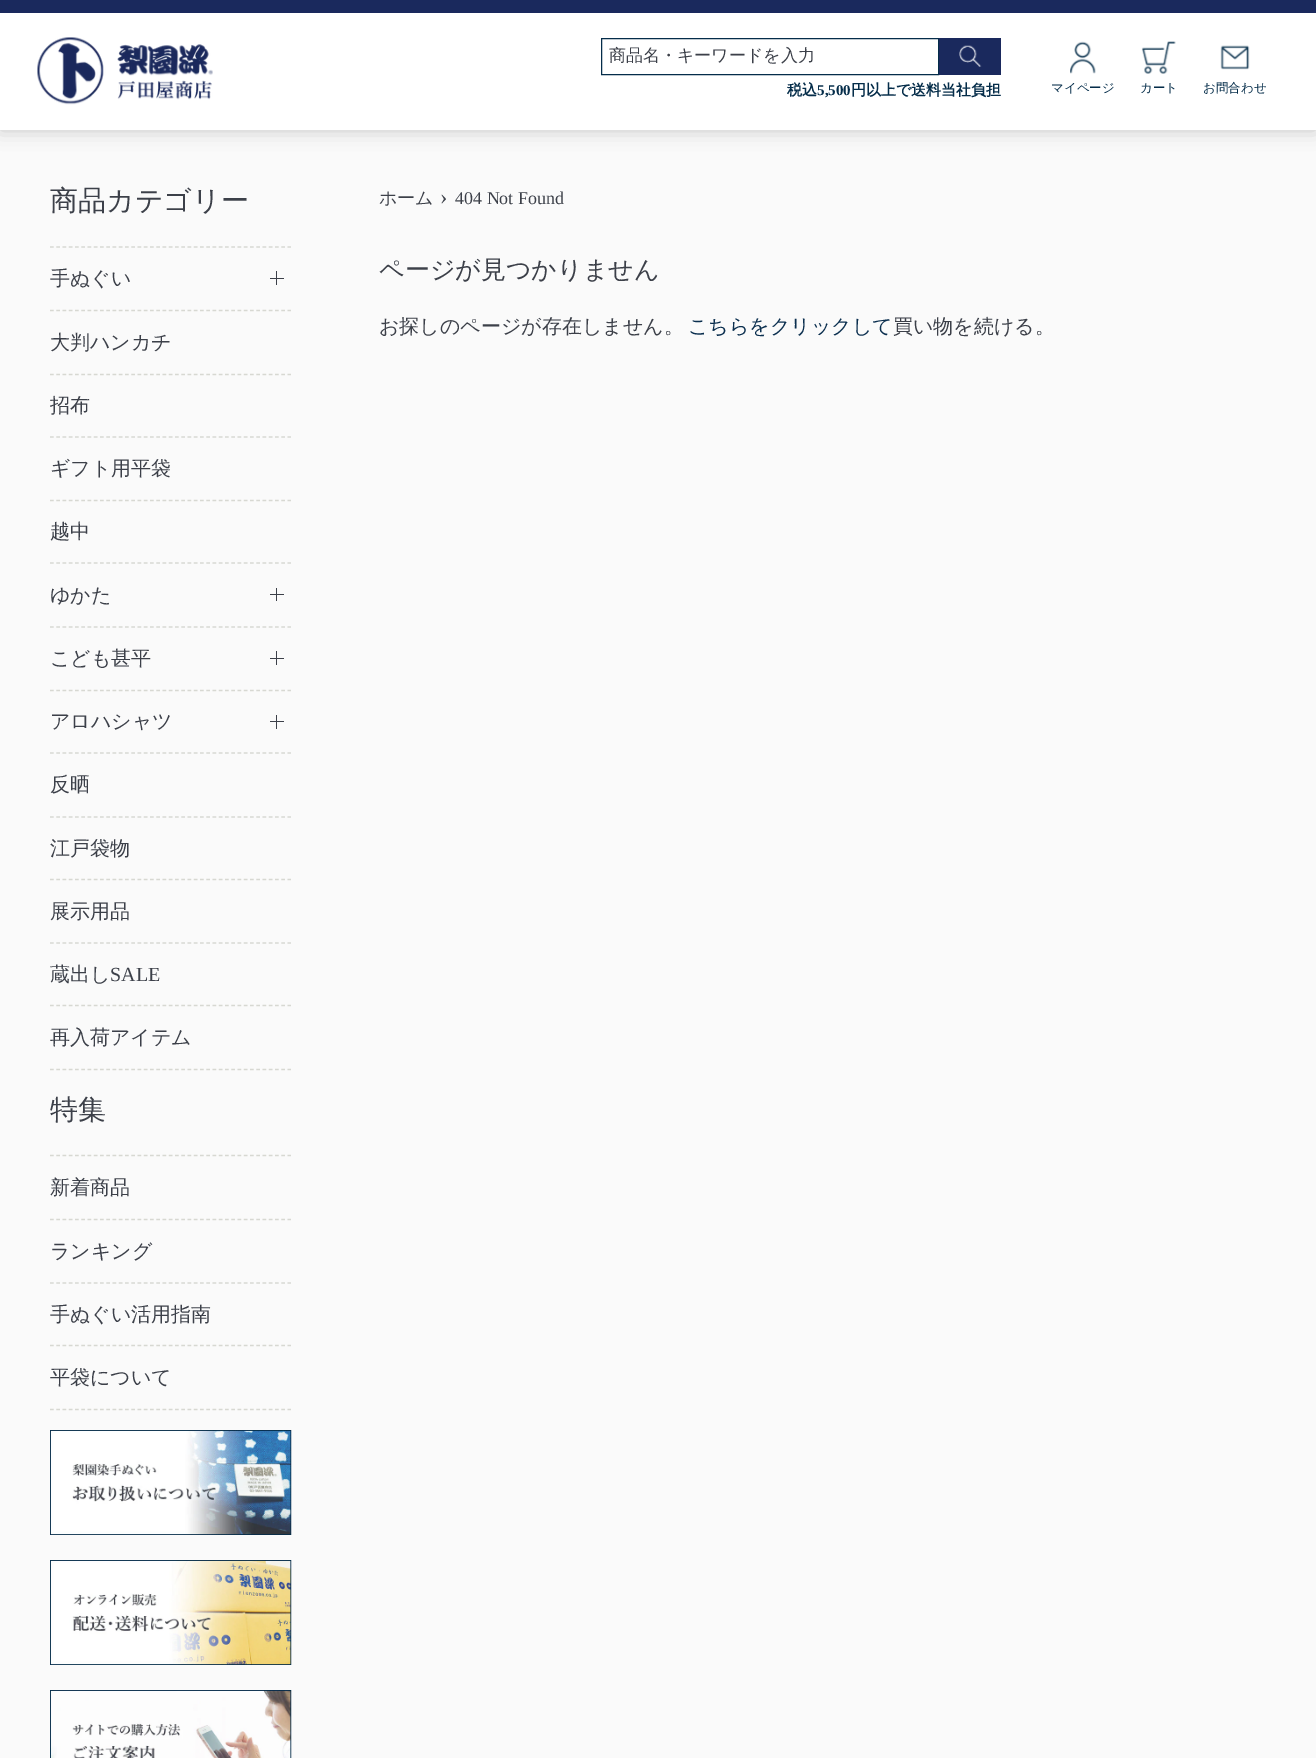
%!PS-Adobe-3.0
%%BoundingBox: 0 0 1316 1758
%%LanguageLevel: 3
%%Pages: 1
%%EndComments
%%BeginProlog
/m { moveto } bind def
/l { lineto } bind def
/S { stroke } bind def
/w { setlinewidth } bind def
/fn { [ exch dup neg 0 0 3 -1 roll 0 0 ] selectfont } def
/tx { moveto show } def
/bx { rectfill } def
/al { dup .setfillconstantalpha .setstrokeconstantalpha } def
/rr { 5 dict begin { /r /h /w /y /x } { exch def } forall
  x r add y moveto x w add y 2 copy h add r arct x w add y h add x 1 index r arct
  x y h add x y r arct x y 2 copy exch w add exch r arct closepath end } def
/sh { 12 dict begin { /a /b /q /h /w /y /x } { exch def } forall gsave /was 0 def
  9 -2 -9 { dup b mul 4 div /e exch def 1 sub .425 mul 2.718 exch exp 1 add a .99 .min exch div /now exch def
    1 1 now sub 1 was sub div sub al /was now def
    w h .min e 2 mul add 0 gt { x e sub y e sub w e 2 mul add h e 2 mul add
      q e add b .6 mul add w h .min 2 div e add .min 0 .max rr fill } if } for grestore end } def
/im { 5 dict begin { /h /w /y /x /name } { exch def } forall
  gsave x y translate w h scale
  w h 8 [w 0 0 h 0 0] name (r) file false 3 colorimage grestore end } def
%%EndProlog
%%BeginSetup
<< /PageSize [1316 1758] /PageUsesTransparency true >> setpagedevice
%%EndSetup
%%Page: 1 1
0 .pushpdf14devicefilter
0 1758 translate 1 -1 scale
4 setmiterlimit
0.98 setgray
0 0 1316 1758 bx
0 setgray
0 0 1316 130 0 9.5 0.2 sh
1 setgray
0 13 1316 117 bx
0.102 0.161 0.365 setrgbcolor
0 0 1316 13 bx
(image0.raw) 37 37 176 68 im
0.02 0.176 0.29 setrgbcolor
601.5 38.5 337 36 rectstroke
/WenQuanYiZenHei-Medium 17 fn
0.235 0.251 0.286 setrgbcolor
(商品名・キーワードを入力) 609 61 tx
0.102 0.161 0.365 setrgbcolor
939 38 62 37 bx
(image1.raw) 959 45 23 22 im
/WenQuanYiZenHei-Bold 15 fn
0.02 0.176 0.29 setrgbcolor
(税込) 787 95 tx
/LiberationSerif-Bold 15 fn
(5,500) 817 95 tx
/WenQuanYiZenHei-Bold 15 fn
(円以上で送料当社負担) 851 95 tx
(image2.raw) 1070 41 26 33 im
/WenQuanYiZenHei-Medium 12.5 fn
(マイページ) 1051 92 tx
(image3.raw) 1141 41 35 33 im
(カート) 1140 92 tx
(image4.raw) 1220 45 30 25 im
(お問合わせ) 1203 92 tx
/WenQuanYiZenHei-Medium 28 fn
0.235 0.251 0.286 setrgbcolor
(商品カテゴリー) 50 210 tx
0.843 0.847 0.824 setrgbcolor
1.2 w
[3.75 2.5] 0 setdash
50 247 m 291 247 l S
50 310.5 m 291 310.5 l S
/WenQuanYiZenHei-Medium 20 fn
0.235 0.251 0.286 setrgbcolor
(手ぬぐい) 50 285 tx
276 271 1 14 bx
270 278 14 1 bx
0.843 0.847 0.824 setrgbcolor
50 374.5 m 291 374.5 l S
0.235 0.251 0.286 setrgbcolor
(大判ハンカチ) 50 349 tx
0.843 0.847 0.824 setrgbcolor
50 437 m 291 437 l S
0.235 0.251 0.286 setrgbcolor
(招布) 50 412 tx
0.843 0.847 0.824 setrgbcolor
50 500.5 m 291 500.5 l S
0.235 0.251 0.286 setrgbcolor
(ギフト用平袋) 50 475 tx
0.843 0.847 0.824 setrgbcolor
50 563 m 291 563 l S
0.235 0.251 0.286 setrgbcolor
(越中) 50 538 tx
0.843 0.847 0.824 setrgbcolor
50 627 m 291 627 l S
0.235 0.251 0.286 setrgbcolor
(ゆかた) 50 602 tx
276 588 1 13 bx
270 594 14 1 bx
0.843 0.847 0.824 setrgbcolor
50 690.5 m 291 690.5 l S
0.235 0.251 0.286 setrgbcolor
(こども甚平) 50 665 tx
276 651 1 14 bx
270 658 14 1 bx
0.843 0.847 0.824 setrgbcolor
50 753 m 291 753 l S
0.235 0.251 0.286 setrgbcolor
(アロハシャツ) 50 728 tx
276 715 1 14 bx
270 721 14 1 bx
0.843 0.847 0.824 setrgbcolor
50 817 m 291 817 l S
0.235 0.251 0.286 setrgbcolor
(反晒) 50 791 tx
0.843 0.847 0.824 setrgbcolor
50 879.5 m 291 879.5 l S
0.235 0.251 0.286 setrgbcolor
(江戸袋物) 50 855 tx
0.843 0.847 0.824 setrgbcolor
50 943 m 291 943 l S
0.235 0.251 0.286 setrgbcolor
(展示用品) 50 918 tx
0.843 0.847 0.824 setrgbcolor
50 1005.5 m 291 1005.5 l S
0.235 0.251 0.286 setrgbcolor
(蔵出し) 50 981 tx
/LiberationSerif-Regular 20 fn
(SALE) 110 981 tx
0.843 0.847 0.824 setrgbcolor
50 1069.5 m 291 1069.5 l S
/WenQuanYiZenHei-Medium 20 fn
0.235 0.251 0.286 setrgbcolor
(再入荷アイテム) 50 1044 tx
/WenQuanYiZenHei-Medium 28 fn
(特集) 50 1119 tx
0.843 0.847 0.824 setrgbcolor
50 1155.5 m 291 1155.5 l S
50 1219.5 m 291 1219.5 l S
/WenQuanYiZenHei-Medium 20 fn
0.235 0.251 0.286 setrgbcolor
(新着商品) 50 1194 tx
0.843 0.847 0.824 setrgbcolor
50 1283 m 291 1283 l S
0.235 0.251 0.286 setrgbcolor
(ランキング) 50 1258 tx
0.843 0.847 0.824 setrgbcolor
50 1345.5 m 291 1345.5 l S
0.235 0.251 0.286 setrgbcolor
(手ぬぐい活用指南) 50 1321 tx
0.843 0.847 0.824 setrgbcolor
50 1409.5 m 291 1409.5 l S
0.235 0.251 0.286 setrgbcolor
(平袋について) 50 1384 tx
(image5.raw) 50 1430 242 105 im
(image6.raw) 50 1560 242 105 im
(image7.raw) 50 1690 242 68 im
/WenQuanYiZenHei-Medium 18 fn
(ホーム) 379 204 tx
/LiberationSerif-Regular 22 fn
(›) 440 204 tx
/LiberationSerif-Regular 18 fn
(404 Not Found) 455 204 tx
/WenQuanYiZenHei-Medium 25 fn
(ページが見つかりません) 379 278 tx
/WenQuanYiZenHei-Medium 20 fn
(お探しのページが存在しません。) 379 333 tx
0.043 0.184 0.31 setrgbcolor
(こちらをクリックして) 688 333 tx
0.235 0.251 0.286 setrgbcolor
(買い物を続ける。) 893 333 tx
.poppdf14devicefilter showpage
%%EOF
